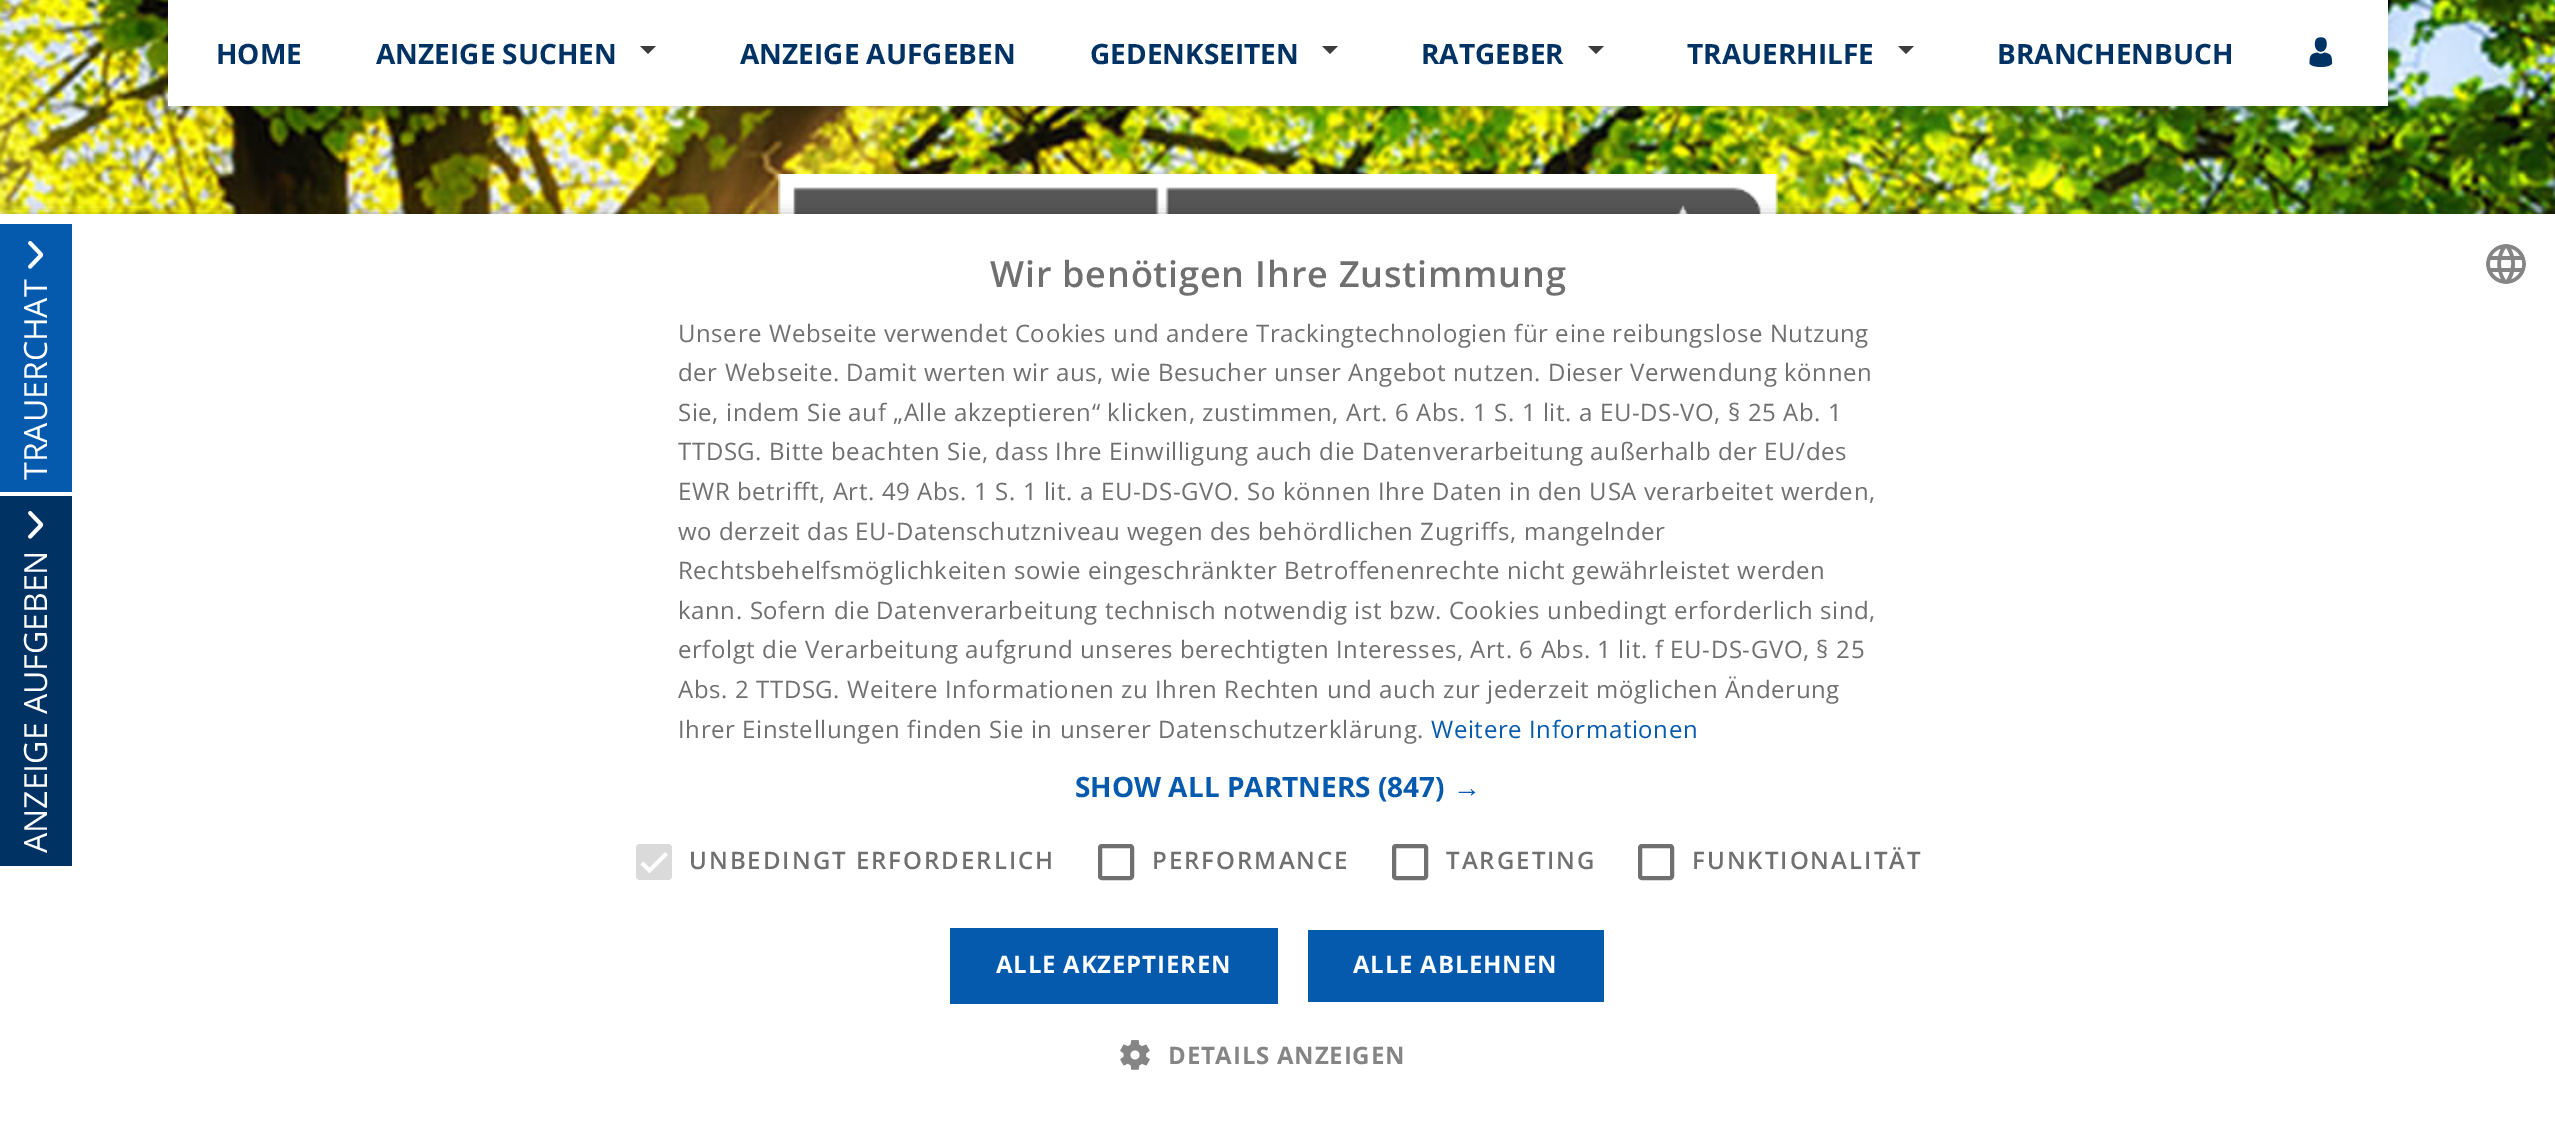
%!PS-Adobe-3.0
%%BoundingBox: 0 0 2555 1121
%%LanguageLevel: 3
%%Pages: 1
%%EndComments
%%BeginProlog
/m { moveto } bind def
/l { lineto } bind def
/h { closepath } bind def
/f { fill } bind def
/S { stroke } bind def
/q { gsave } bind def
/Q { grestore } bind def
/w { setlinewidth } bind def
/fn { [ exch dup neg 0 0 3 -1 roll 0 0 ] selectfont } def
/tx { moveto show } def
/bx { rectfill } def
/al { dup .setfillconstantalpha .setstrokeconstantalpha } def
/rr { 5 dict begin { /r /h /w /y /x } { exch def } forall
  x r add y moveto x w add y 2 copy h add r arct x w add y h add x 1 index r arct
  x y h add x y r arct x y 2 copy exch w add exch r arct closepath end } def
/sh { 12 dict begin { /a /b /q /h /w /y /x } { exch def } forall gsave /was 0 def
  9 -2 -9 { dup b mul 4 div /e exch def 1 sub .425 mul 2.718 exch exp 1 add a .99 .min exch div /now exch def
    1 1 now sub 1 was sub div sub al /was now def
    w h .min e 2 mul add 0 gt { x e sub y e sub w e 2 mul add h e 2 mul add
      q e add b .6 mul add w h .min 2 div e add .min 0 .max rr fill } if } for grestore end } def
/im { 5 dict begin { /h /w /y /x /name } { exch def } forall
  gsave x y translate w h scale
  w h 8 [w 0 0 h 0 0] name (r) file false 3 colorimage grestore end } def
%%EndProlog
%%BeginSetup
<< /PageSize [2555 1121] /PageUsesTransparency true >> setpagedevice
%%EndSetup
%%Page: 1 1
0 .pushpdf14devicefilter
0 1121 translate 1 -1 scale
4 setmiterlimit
1 setgray
0 0 2555 1121 bx
(image0.raw) 0 0 2555 214 im
(image1.raw) 778 174 1000 40 im
0 setgray
168 4 2220 106 0 4 0.07 sh
1 setgray
168 0 2220 106 bx
/OpenSans-Bold 28 fn
0 0.196 0.392 setrgbcolor
(HOME) 216 64 tx
(ANZEIGE SUCHEN) 376 64 tx
0.235 setgray
640 46 m 656 46 l 648 54 l h f
0 0.196 0.392 setrgbcolor
(ANZEIGE AUFGEBEN) 740 64 tx
(GEDENKSEITEN) 1090 64 tx
0.235 setgray
1322 46 m 1338 46 l 1330 54 l h f
0 0.196 0.392 setrgbcolor
(RATGEBER) 1421 64 tx
0.235 setgray
1588 46 m 1604 46 l 1596 54 l h f
0 0.196 0.392 setrgbcolor
(TRAUERHILFE) 1687 64 tx
0.235 setgray
1898 46 m 1914 46 l 1906 54 l h f
0 0.196 0.392 setrgbcolor
(BRANCHENBUCH) 1997 64 tx
(image2.raw) 2309 37 24 31 im
0 setgray
2 218 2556 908 0 8 0.35 sh
1 setgray
0 214 2555 907 bx
0.024 0.353 0.682 setrgbcolor
0 224 72 268 bx
(image3.raw) 28 241 16 28 im
/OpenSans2-Regular 32 fn
1 setgray
q 47 480 translate -90 rotate 0 0 m (TRAUERCHAT) show Q
0 0.196 0.392 setrgbcolor
0 496 72 370 bx
(image4.raw) 28 511 16 28 im
1 setgray
q 47 853 translate -90 rotate 0 0 m (ANZEIGE AUFGEBEN) show Q
/OpenSans-SemiBold 36 fn
0.439 setgray
990 287 m 0.8 0 (Wir benötigen Ihre Zustimmung) ashow
(image5.raw) 2486 244 40 40 im
/OpenSans-Regular 24 fn
678 342 m 0.6 0 (Unsere Webseite verwendet Cookies und andere Trackingtechnologien für eine reibungslose Nutzung) ashow
678 381 m 0.6 0 (der Webseite. Damit werten wir aus, wie Besucher unser Angebot nutzen. Dieser Verwendung können) ashow
678 421 m 0.6 0 (Sie, indem Sie auf „Alle akzeptieren“ klicken, zustimmen, Art. 6 Abs. 1 S. 1 lit. a EU-DS-VO, § 25 Ab. 1) ashow
678 460 m 0.6 0 (TTDSG. Bitte beachten Sie, dass Ihre Einwilligung auch die Datenverarbeitung außerhalb der EU/des) ashow
678 500 m 0.6 0 (EWR betrifft, Art. 49 Abs. 1 S. 1 lit. a EU-DS-GVO. So können Ihre Daten in den USA verarbeitet werden,) ashow
678 540 m 0.6 0 (wo derzeit das EU-Datenschutzniveau wegen des behördlichen Zugriffs, mangelnder) ashow
678 579 m 0.6 0 (Rechtsbehelfsmöglichkeiten sowie eingeschränkter Betroffenenrechte nicht gewährleistet werden) ashow
678 619 m 0.6 0 (kann. Sofern die Datenverarbeitung technisch notwendig ist bzw. Cookies unbedingt erforderlich sind,) ashow
678 658 m 0.6 0 (erfolgt die Verarbeitung aufgrund unseres berechtigten Interesses, Art. 6 Abs. 1 lit. f EU-DS-GVO, § 25) ashow
678 698 m 0.6 0 (Abs. 2 TTDSG. Weitere Informationen zu Ihren Rechten und auch zur jederzeit möglichen Änderung) ashow
678 738 m 0.6 0 (Ihrer Einstellungen finden Sie in unserer Datenschutzerklärung.) ashow
0.024 0.353 0.682 setrgbcolor
1431 738 m 0.6 0 (Weitere Informationen) ashow
/OpenSans2-Bold 28 fn
(SHOW ALL PARTNERS \(847\)) 1075 797 tx
/LiberationSans-Bold 28 fn
(→) 1453 797 tx
0.855 setgray
636 844 36 36 4 rr f
1 setgray
3.6 w
642 863 m 649.5 870.5 l 666.5 853.5 l S
/OpenSans-SemiBold 24 fn
0.439 setgray
689 869 m 2 0 (UNBEDINGT ERFORDERLICH) ashow
4 w
1100 846 32 32 2 rr S
1152 869 m 2 0 (PERFORMANCE) ashow
1394 846 32 32 2 rr S
1446 869 m 2 0 (TARGETING) ashow
1640 846 32 32 2 rr S
1692 869 m 2 0 (FUNKTIONALITÄT) ashow
0.024 0.353 0.682 setrgbcolor
950 928 328 76 bx
/OpenSans2-Bold 24 fn
1 setgray
996 973 m 0.8 0 (ALLE AKZEPTIEREN) ashow
0.024 0.353 0.682 setrgbcolor
1308 930 296 72 bx
1 setgray
1353 973 m 0.8 0 (ALLE ABLEHNEN) ashow
(image6.raw) 1120 1040 30 30 im
0.522 setgray
1168 1064 m 0.8 0 (DETAILS ANZEIGEN) ashow
.poppdf14devicefilter showpage
%%EOF
